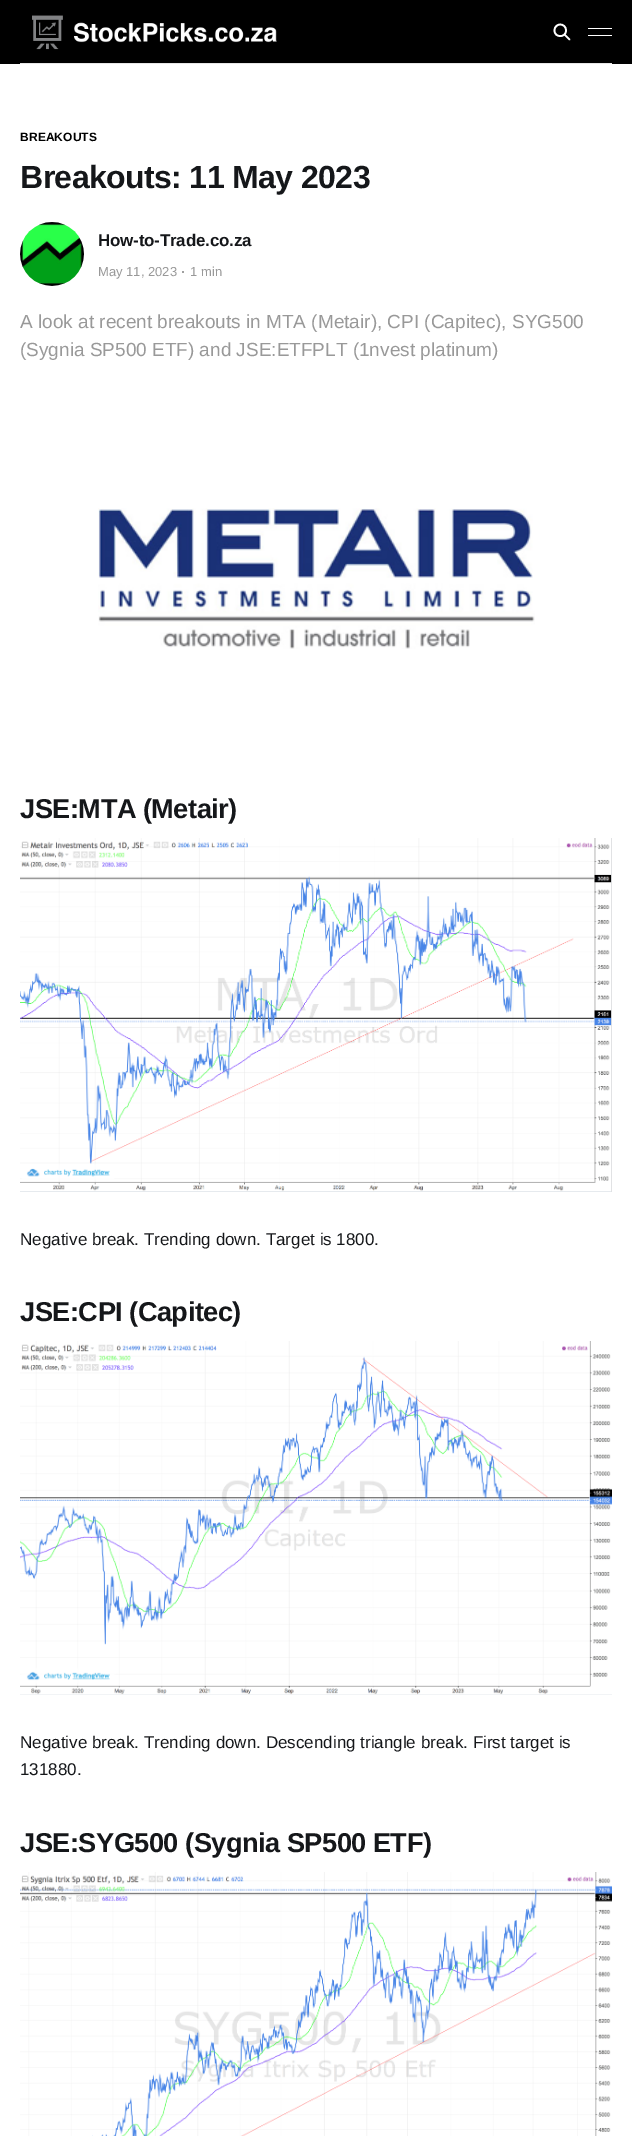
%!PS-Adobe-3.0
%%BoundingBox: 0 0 632 2136
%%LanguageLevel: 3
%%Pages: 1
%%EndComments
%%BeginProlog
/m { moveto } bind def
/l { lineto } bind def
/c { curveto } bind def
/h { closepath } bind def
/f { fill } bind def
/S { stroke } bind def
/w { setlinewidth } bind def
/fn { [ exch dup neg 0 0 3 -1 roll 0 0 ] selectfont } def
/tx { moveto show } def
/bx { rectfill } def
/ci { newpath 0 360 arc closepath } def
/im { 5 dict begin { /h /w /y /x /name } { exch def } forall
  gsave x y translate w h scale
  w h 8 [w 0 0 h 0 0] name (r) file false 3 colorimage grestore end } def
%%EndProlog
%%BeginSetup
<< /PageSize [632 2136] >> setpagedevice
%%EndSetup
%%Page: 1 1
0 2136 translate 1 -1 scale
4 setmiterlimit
1 setgray
0 0 632 2136 bx
0 setgray
0 0 632 64 bx
0.902 setgray
20 63 592 1 bx
(image0.raw) 32 15 245 35 im
1 setgray
1.7 w
1 setlinecap
1 setlinejoin
569.5 39.5 m 564.5 34.5 l 566 30.5 m 566 38 554.5 38 554.5 30.5 c 554.5 22.5 566 22.5 566 30.5 c h S
588 28 24 1 bx
588 35 24 1 bx
/LiberationSans-Bold 12 fn
0 setgray
20 141 m 0.1 0 (BREAKOUTS) ashow
/LiberationSans-Bold 32 fn
0.082 0.09 0.102 setrgbcolor
20 188 m -0.6 0 (Breakouts: 11 May 2023) ashow
(image1.raw) 20 222 64 64 im
/LiberationSans-Bold 17 fn
98 246 m -0.2 0 (How-to-Trade.co.za) ashow
/LiberationSans-Regular 13 fn
0.6 setgray
(May 11, 2023) 98 276 tx
183 272 1 ci f
(1 min) 190 276 tx
/LiberationSans-Regular 19 fn
(A look at recent breakouts in MTA \(Metair\), CPI \(Capitec\), SYG500) 20 328 tx
(\(Sygnia SP500 ETF\) and JSE:ETFPLT \(1nvest platinum\)) 20 356 tx
(image2.raw) 98 508 437 141 im
/LiberationSans-Bold 27.25 fn
0.082 0.09 0.102 setrgbcolor
20 818 m -0.55 0 (JSE:MTA \(Metair\)) ashow
(image3.raw) 20 838 592 354 im
/LiberationSans-Regular 17 fn
(Negative break. Trending down. Target is 1800.) 20 1245 tx
/LiberationSans-Bold 27.25 fn
20 1321 m -0.55 0 (JSE:CPI \(Capitec\)) ashow
(image4.raw) 20 1341 592 354 im
/LiberationSans-Regular 17 fn
(Negative break. Trending down. Descending triangle break. First target is) 20 1748 tx
(131880.) 20 1775 tx
/LiberationSans-Bold 27.25 fn
20 1852 m -0.55 0 (JSE:SYG500 \(Sygnia SP500 ETF\)) ashow
(image5.raw) 20 1872 592 264 im
showpage
%%EOF
